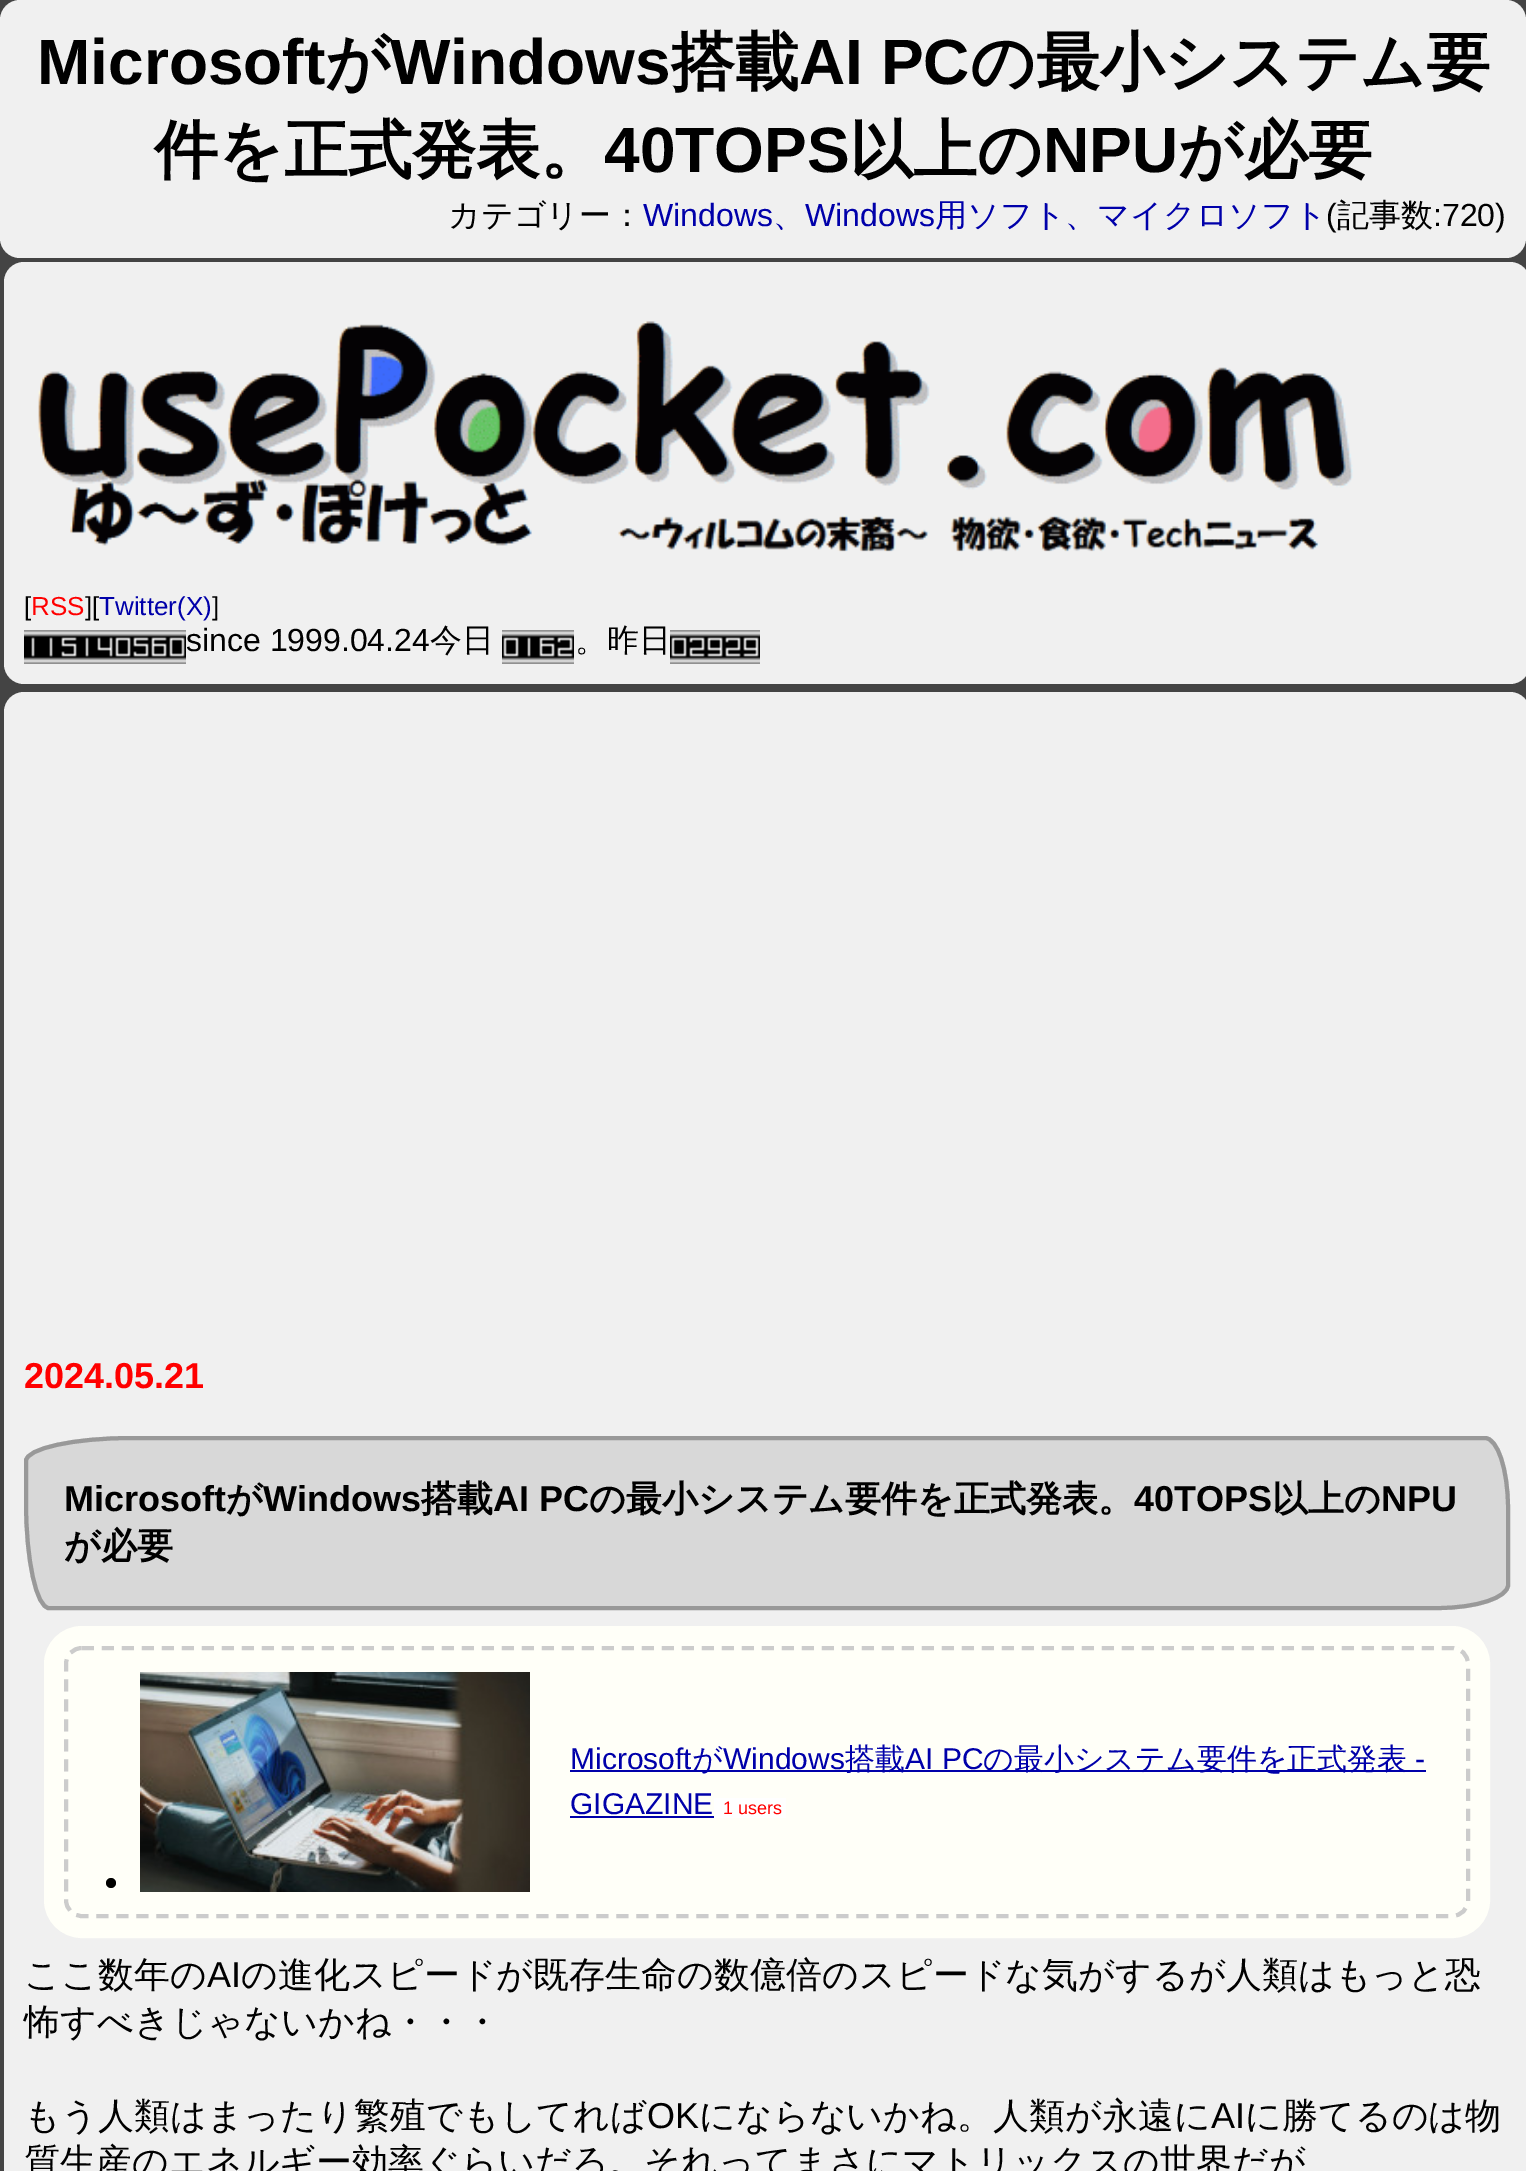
%!PS-Adobe-3.0
%%BoundingBox: 0 0 1526 2171
%%LanguageLevel: 3
%%Pages: 1
%%EndComments
%%BeginProlog
/m { moveto } bind def
/l { lineto } bind def
/c { curveto } bind def
/h { closepath } bind def
/f { fill } bind def
/S { stroke } bind def
/w { setlinewidth } bind def
/fn { [ exch dup neg 0 0 3 -1 roll 0 0 ] selectfont } def
/tx { moveto show } def
/bx { rectfill } def
/ci { newpath 0 360 arc closepath } def
/rr { 5 dict begin { /r /h /w /y /x } { exch def } forall
  x r add y moveto x w add y 2 copy h add r arct x w add y h add x 1 index r arct
  x y h add x y r arct x y 2 copy exch w add exch r arct closepath end } def
/im { 5 dict begin { /h /w /y /x /name } { exch def } forall
  gsave x y translate w h scale
  w h 8 [w 0 0 h 0 0] name (r) file false 3 colorimage grestore end } def
%%EndProlog
%%BeginSetup
<< /PageSize [1526 2171] >> setpagedevice
%%EndSetup
%%Page: 1 1
0 2171 translate 1 -1 scale
4 setmiterlimit
0.267 setgray
0 0 1526 2171 bx
0.941 setgray
0 0 1526 258 20 rr f
/LiberationSans-Bold 64 fn
0 setgray
(Microsoft) 37 84 tx
/WenQuanYiZenHei-Bold 64 fn
(が) 325 84 tx
/LiberationSans-Bold 64 fn
(Windows) 390 84 tx
/WenQuanYiZenHei-Bold 64 fn
(搭載) 671 84 tx
/LiberationSans-Bold 64 fn
(AI PC) 799 84 tx
/WenQuanYiZenHei-Bold 64 fn
(の最小システム要) 970 84 tx
(件を正式発表。) 154 172 tx
/LiberationSans-Bold 64 fn
(40TOPS) 604 172 tx
/WenQuanYiZenHei-Bold 64 fn
(以上の) 849 172 tx
/LiberationSans-Bold 64 fn
(NPU) 1043 172 tx
/WenQuanYiZenHei-Bold 64 fn
(が必要) 1178 172 tx
/WenQuanYiZenHei-Medium 32 fn
(カテゴリー：) 448 226 tx
/LiberationSans-Regular 32 fn
0 0 0.667 setrgbcolor
(Windows) 643 226 tx
/WenQuanYiZenHei-Medium 32 fn
(、) 773 226 tx
/LiberationSans-Regular 32 fn
(Windows) 805 226 tx
/WenQuanYiZenHei-Medium 32 fn
(用ソフト、マイクロソフト) 935 226 tx
/LiberationSans-Regular 32 fn
0 setgray
(\() 1326 226 tx
/WenQuanYiZenHei-Medium 32 fn
(記事数) 1337 226 tx
/LiberationSans-Regular 32 fn
(:720\)) 1433 226 tx
0.941 setgray
4 262 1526 422 20 rr f
(image0.raw) 38 321 1315 231 im
/LiberationSans-Regular 26 fn
0 setgray
([) 24 615 tx
1 0 0 setrgbcolor
(RSS) 31 615 tx
0 setgray
(][) 85 615 tx
0 0 0.667 setrgbcolor
(Twitter\(X\)) 99 615 tx
0 setgray
(]) 212 615 tx
(image1.raw) 24 630 162 34 im
/LiberationSans-Regular 32 fn
(since 1999.04.24) 186 651 tx
/WenQuanYiZenHei-Medium 32 fn
(今日) 430 651 tx
(image2.raw) 502 630 72 34 im
(。昨日) 575 651 tx
(image3.raw) 670 630 90 34 im
0.941 setgray
4 692 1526 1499 20 rr f
/LiberationSans-Bold 36 fn
1 0 0 setrgbcolor
(2024.05.21) 24 1388 tx
0.847 setgray
132 1436 m 1485 1436 l 1499 1436 1510 1468 1510 1508 c 1510 1585 l 1510 1599 1478 1610 1438 1610 c 49 1610 l 35 1610 24 1562 24 1502 c 24 1461 l 24 1447 72 1436 132 1436 c h f
0.6 setgray
4 w
132 1438 m 1485 1438 l 1497.5 1438 1508 1469.5 1508 1508 c 1508 1585 l 1508 1597.5 1476.5 1608 1438 1608 c 49 1608 l 36.5 1608 26 1560.5 26 1502 c 26 1461 l 26 1448.5 73.5 1438 132 1438 c h S
0 setgray
(Microsoft) 64 1511 tx
/WenQuanYiZenHei-Bold 36 fn
(が) 226 1511 tx
/LiberationSans-Bold 36 fn
(Windows) 263 1511 tx
/WenQuanYiZenHei-Bold 36 fn
(搭載) 421 1511 tx
/LiberationSans-Bold 36 fn
(AI PC) 493 1511 tx
/WenQuanYiZenHei-Bold 36 fn
(の最小システム要件を正式発表。) 589 1511 tx
/LiberationSans-Bold 36 fn
(40TOPS) 1134 1511 tx
/WenQuanYiZenHei-Bold 36 fn
(以上の) 1272 1511 tx
/LiberationSans-Bold 36 fn
(NPU) 1381 1511 tx
/WenQuanYiZenHei-Bold 36 fn
(が必要) 64 1558 tx
1 1 0.973 setrgbcolor
20 w
54 1636 1426 292 28 rr S
64 1646 1406 272 18 rr f
0.8 setgray
4 w
[12 8] 0 setdash
82 1648 m 1452 1648 l 1461 1648 1468 1655 1468 1664 c 1468 1900 l 1468 1909 1461 1916 1452 1916 c 82 1916 l 73 1916 66 1909 66 1900 c 66 1664 l 66 1655 73 1648 82 1648 c h S
(image4.raw) 140 1672 390 220 im
/LiberationSans-Regular 30 fn
0 0 0.667 setrgbcolor
(Microsoft) 570 1769 tx
570 1770 856 2 bx
/WenQuanYiZenHei-Medium 30 fn
(が) 692 1769 tx
/LiberationSans-Regular 30 fn
(Windows) 723 1769 tx
/WenQuanYiZenHei-Medium 30 fn
(搭載) 845 1769 tx
/LiberationSans-Regular 30 fn
(AI PC) 905 1769 tx
/WenQuanYiZenHei-Medium 30 fn
(の最小システム要件を正式発表) 983 1769 tx
/LiberationSans-Regular 30 fn
(-) 1415 1769 tx
(GIGAZINE) 570 1814 tx
570 1816 144 2 bx
1 setgray
714 1798 72 20 bx
/LiberationSans-Regular 18 fn
1 0 0 setrgbcolor
(1 users) 723 1814 tx
0 setgray
111 1883 5 ci f
/WenQuanYiZenHei-Medium 36 fn
(ここ数年の) 24 1987 tx
/LiberationSans-Regular 36 fn
(AI) 207 1987 tx
/WenQuanYiZenHei-Medium 36 fn
(の進化スピードが既存生命の数億倍のスピードな気がするが人類はもっと恐) 241 1987 tx
(怖すべきじゃないかね・・・) 24 2034 tx
(もう人類はまったり繁殖でもしてれば) 24 2128 tx
/LiberationSans-Regular 36 fn
(OK) 647 2128 tx
/WenQuanYiZenHei-Medium 36 fn
(にならないかね。人類が永遠に) 699 2128 tx
/LiberationSans-Regular 36 fn
(AI) 1211 2128 tx
/WenQuanYiZenHei-Medium 36 fn
(に勝てるのは物) 1245 2128 tx
(質生産のエネルギー効率ぐらいだろ。それってまさにマトリックスの世界だが) 24 2174 tx
showpage
%%EOF
